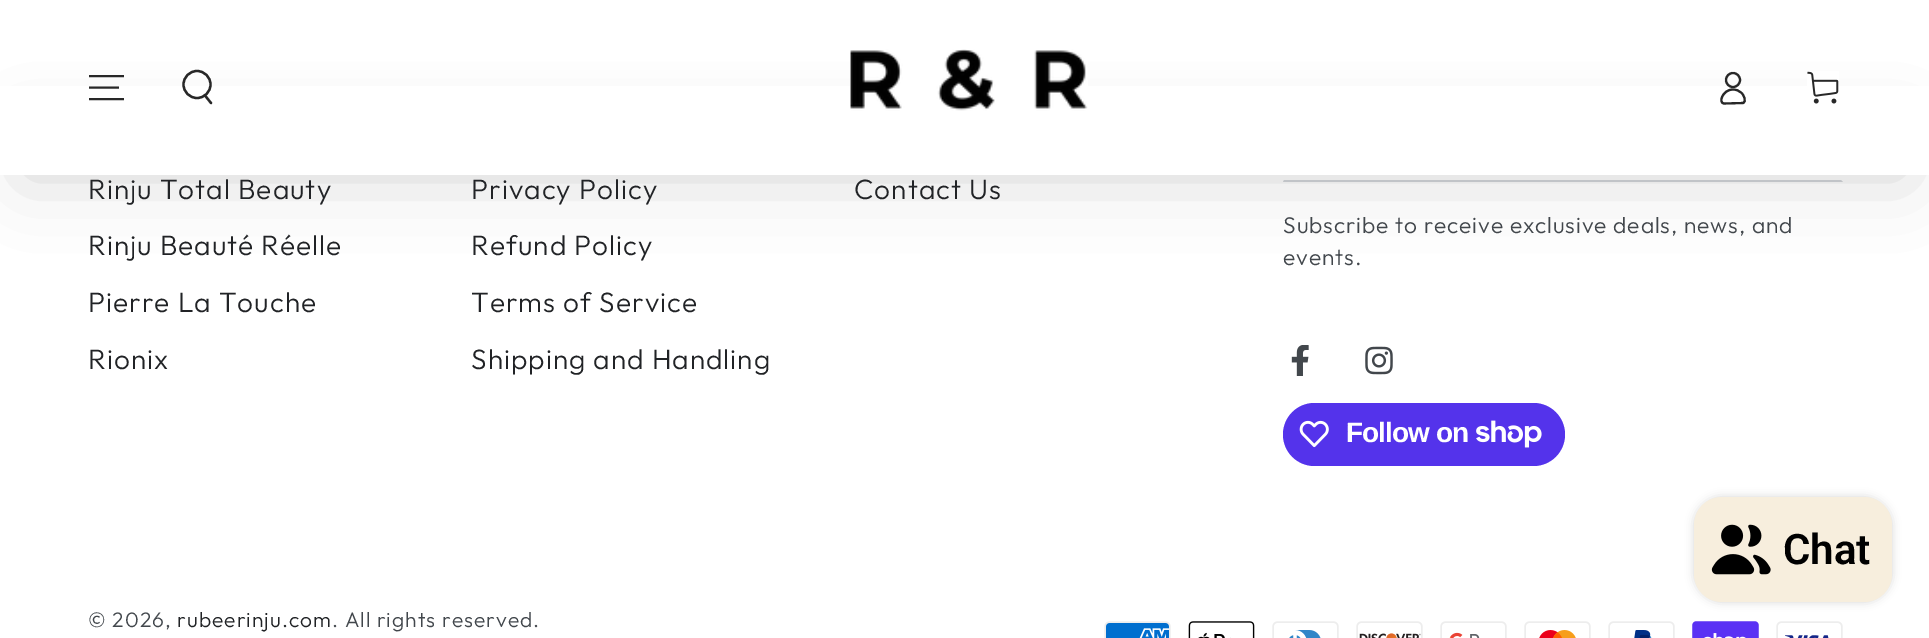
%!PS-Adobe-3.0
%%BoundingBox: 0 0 1929 638
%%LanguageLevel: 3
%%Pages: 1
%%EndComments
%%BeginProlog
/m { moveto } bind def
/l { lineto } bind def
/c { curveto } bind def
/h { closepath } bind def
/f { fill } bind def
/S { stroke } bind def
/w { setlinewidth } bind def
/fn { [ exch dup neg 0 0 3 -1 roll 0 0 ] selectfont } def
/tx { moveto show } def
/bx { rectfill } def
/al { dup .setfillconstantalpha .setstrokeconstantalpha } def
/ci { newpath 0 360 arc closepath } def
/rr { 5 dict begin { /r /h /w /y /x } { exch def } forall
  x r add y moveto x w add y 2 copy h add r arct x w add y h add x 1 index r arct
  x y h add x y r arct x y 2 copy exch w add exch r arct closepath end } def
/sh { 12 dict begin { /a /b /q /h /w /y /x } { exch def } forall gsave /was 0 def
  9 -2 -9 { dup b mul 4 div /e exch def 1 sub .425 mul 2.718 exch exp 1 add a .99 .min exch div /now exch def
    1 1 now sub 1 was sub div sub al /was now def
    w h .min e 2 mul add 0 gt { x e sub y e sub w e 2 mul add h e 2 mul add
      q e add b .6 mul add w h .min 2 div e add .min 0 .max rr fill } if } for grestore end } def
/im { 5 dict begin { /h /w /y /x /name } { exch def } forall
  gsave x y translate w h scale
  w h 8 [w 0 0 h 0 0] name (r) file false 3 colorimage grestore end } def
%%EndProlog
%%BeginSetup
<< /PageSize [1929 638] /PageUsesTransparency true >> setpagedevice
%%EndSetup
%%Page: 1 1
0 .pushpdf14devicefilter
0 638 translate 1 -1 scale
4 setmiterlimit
1 setgray
0 0 1929 638 bx
0.824 0.835 0.851 setrgbcolor
1843 182 m 1283 182 l 1284 180 l 1841 180 l h f
0.129 0.137 0.149 setrgbcolor
26 140 1878 35 17.5 35 0.2 sh
1 setgray
0 86 1929 89 bx
0.157 setgray
2 w
89 99 m 124 99 l 89 87.5 m 119 87.5 l 89 76 m 124 76 l S
2.3 w
197 84.5 13.5 ci S
1 setlinecap
205 95.5 m 211 103 l S
(image0.raw) 850 49 238 62 im
2.1 w
0 setlinecap
1733 89.5 m 1722.5 89.5 1718 103 1724 103.5 c 1743 103 l 1747 101.5 1743.5 94.5 1741.5 93 c 1739 90.5 1736 89.5 1733 89.5 c h S
1733 80 7 ci S
(image1.raw) 1807 71 32 33 im
/Outfit-Light 28 fn
0.129 0.137 0.149 setrgbcolor
88 199 m 1.05 0 (Rinju Total Beauty) ashow
88 255 m 1.05 0 (Rinju Beauté Réelle) ashow
88 312 m 1.05 0 (Pierre La Touche) ashow
88 369 m 1.05 0 (Rionix) ashow
471 199 m 1.05 0 (Privacy Policy) ashow
471 255 m 1.05 0 (Refund Policy) ashow
471 312 m 1.05 0 (Terms of Service) ashow
471 369 m 1.05 0 (Shipping and Handling) ashow
854 199 m 1.05 0 (Contact Us) ashow
/Outfit-Light 22.75 fn
0.259 0.278 0.298 setrgbcolor
1283 233 m 0.9 0 (Subscribe to receive exclusive deals, news, and) ashow
1283 265 m 0.9 0 (events.) ashow
(image2.raw) 1291 345 18 31 im
(image3.raw) 1365 346 28 29 im
0.329 0.2 0.922 setrgbcolor
1283 403 282 63 31.5 rr f
(image4.raw) 1299 420 30 28 im
/LiberationSans-Bold 28 fn
1 setgray
1346 442 m -0.9 0 (Follow on) ashow
(image5.raw) 1476 420 66 28 im
/Outfit-Light 21 fn
0.259 0.278 0.298 setrgbcolor
88 627 m 1.05 0 (© 2026,) ashow
0.129 0.137 0.149 setrgbcolor
177 627 m 1.05 0 (rubeerinju.com) ashow
0.259 0.278 0.298 setrgbcolor
332 627 m 1.05 0 (. All rights reserved.) ashow
(image6.raw) 1104 621 67 17 im
(image7.raw) 1188 621 67 17 im
(image8.raw) 1272 621 67 17 im
(image9.raw) 1356 621 67 17 im
(image10.raw) 1440 621 67 17 im
(image11.raw) 1524 621 67 17 im
(image12.raw) 1608 621 67 17 im
(image13.raw) 1692 621 67 17 im
(image14.raw) 1776 621 67 17 im
0 setgray
1694 497 198 105 28 4.5 0.15 sh
0.969 0.933 0.867 setrgbcolor
1694 497 198 105 28 rr f
(image15.raw) 1711 524 60 51 im
/Roboto-SemiBold 42 fn
0 setgray
(Chat) 1783 564 tx
.poppdf14devicefilter showpage
%%EOF
